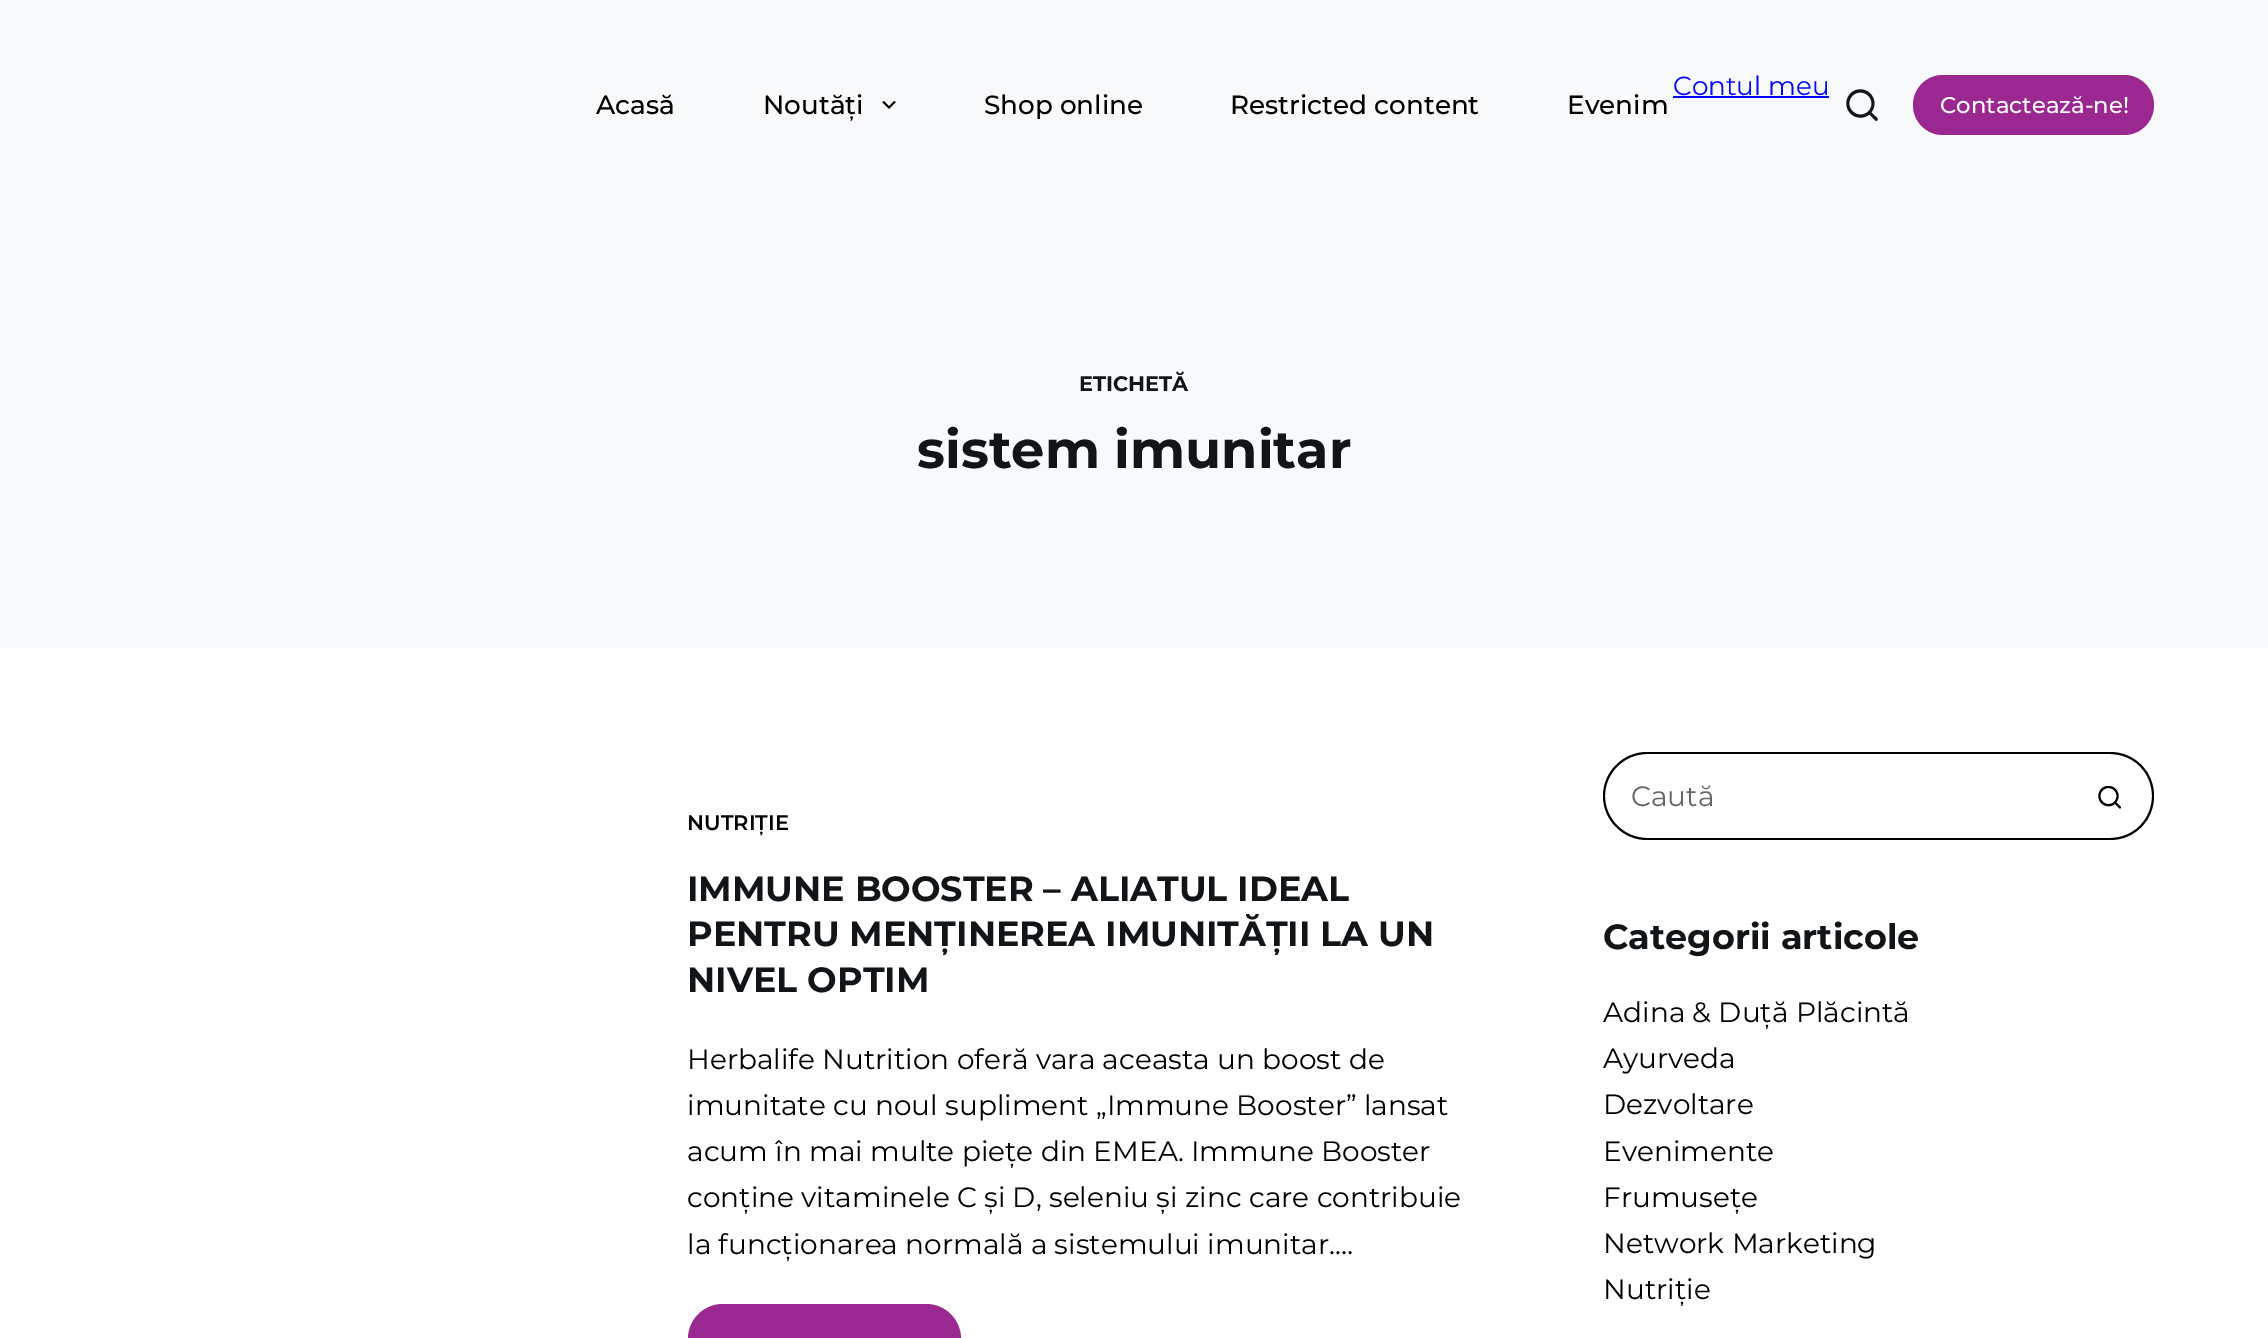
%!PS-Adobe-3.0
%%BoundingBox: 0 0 2268 1338
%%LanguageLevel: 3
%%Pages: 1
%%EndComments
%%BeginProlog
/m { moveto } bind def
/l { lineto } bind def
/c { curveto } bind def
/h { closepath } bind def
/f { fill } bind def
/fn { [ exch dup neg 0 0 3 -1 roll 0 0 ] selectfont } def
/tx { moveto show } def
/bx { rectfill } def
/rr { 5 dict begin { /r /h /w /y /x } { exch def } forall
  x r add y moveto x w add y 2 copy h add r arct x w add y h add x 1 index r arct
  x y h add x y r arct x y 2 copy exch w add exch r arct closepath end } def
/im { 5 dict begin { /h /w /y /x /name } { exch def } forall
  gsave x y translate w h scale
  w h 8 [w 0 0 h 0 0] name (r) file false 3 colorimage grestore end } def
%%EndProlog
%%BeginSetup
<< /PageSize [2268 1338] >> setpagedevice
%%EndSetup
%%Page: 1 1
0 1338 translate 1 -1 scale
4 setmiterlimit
1 setgray
0 0 2268 1338 bx
0.973 0.976 0.984 setrgbcolor
0 0 2268 648 bx
/Montserrat-Medium 26.25 fn
0 setgray
(Acasă) 596 114 tx
(Noutăți) 763 114 tx
(image0.raw) 882 101 14 8 im
(Shop online) 984 114 tx
(Restricted content) 1230 114 tx
(Evenim) 1567 114 tx
/Montserrat-Regular 26.25 fn
0 0.031 1 setrgbcolor
(Contul meu) 1673 95 tx
1673 96 156 2 bx
(image1.raw) 1846 89 32 32 im
0.608 0.157 0.565 setrgbcolor
1913 75 241 60 30 rr f
/Montserrat-Medium 22.75 fn
1 setgray
(Contactează-ne!) 1940 113 tx
/Montserrat-Bold 21 fn
0.067 0.082 0.094 setrgbcolor
(ETICHETĂ) 1079 391 tx
/Montserrat-Bold 52.5 fn
(sistem imunitar) 917 468 tx
/Montserrat-SemiBold 21 fn
0 setgray
(NUTRIȚIE) 687 830 tx
/Montserrat-Bold 35 fn
0.067 0.082 0.094 setrgbcolor
(IMMUNE BOOSTER – ALIATUL IDEAL) 687 901 tx
(PENTRU MENȚINEREA IMUNITĂȚII LA UN) 687 946 tx
(NIVEL OPTIM) 687 992 tx
/Montserrat-Regular 28 fn
0 setgray
(Herbalife Nutrition oferă vara aceasta un boost de) 687 1069 tx
(imunitate cu noul supliment „Immune Booster” lansat) 687 1115 tx
(acum în mai multe piețe din EMEA. Immune Booster) 687 1161 tx
(conține vitaminele C și D, seleniu și zinc care contribuie) 687 1207 tx
(la funcționarea normală a sistemului imunitar.…) 687 1254 tx
0.608 0.157 0.565 setrgbcolor
688 1304 273 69 35 rr f
0 setgray
1647 752 m 2067 752 l 2067 840 l 1647 840 l 1623 840 1603 820 1603 796 c 1603 772 1623 752 1647 752 c h 1647 754 m 2067 754 l 2067 838 l 1647 838 l 1624 838 1605 819 1605 796 c 1605 773 1624 754 1647 754 c h eofill
0.4 setgray
(Caută) 1631 806 tx
0 setgray
2067 752 m 2110 752 l 2135 752 2154 772 2154 796 c 2154 820 2135 840 2110 840 c 2067 840 l h 2067 754 m 2110 754 l 2134 754 2152 773 2152 796 c 2152 819 2134 838 2110 838 c 2067 838 l h eofill
(image2.raw) 2098 786 23 23 im
/Montserrat-Bold 35 fn
0.067 0.082 0.094 setrgbcolor
(Categorii articole) 1603 949 tx
/Montserrat-Regular 28 fn
0 setgray
(Adina & Duță Plăcintă) 1603 1022 tx
(Ayurveda) 1603 1068 tx
(Dezvoltare) 1603 1114 tx
(Evenimente) 1603 1161 tx
(Frumusețe) 1603 1207 tx
(Network Marketing) 1603 1253 tx
(Nutriție) 1603 1299 tx
showpage
%%EOF
